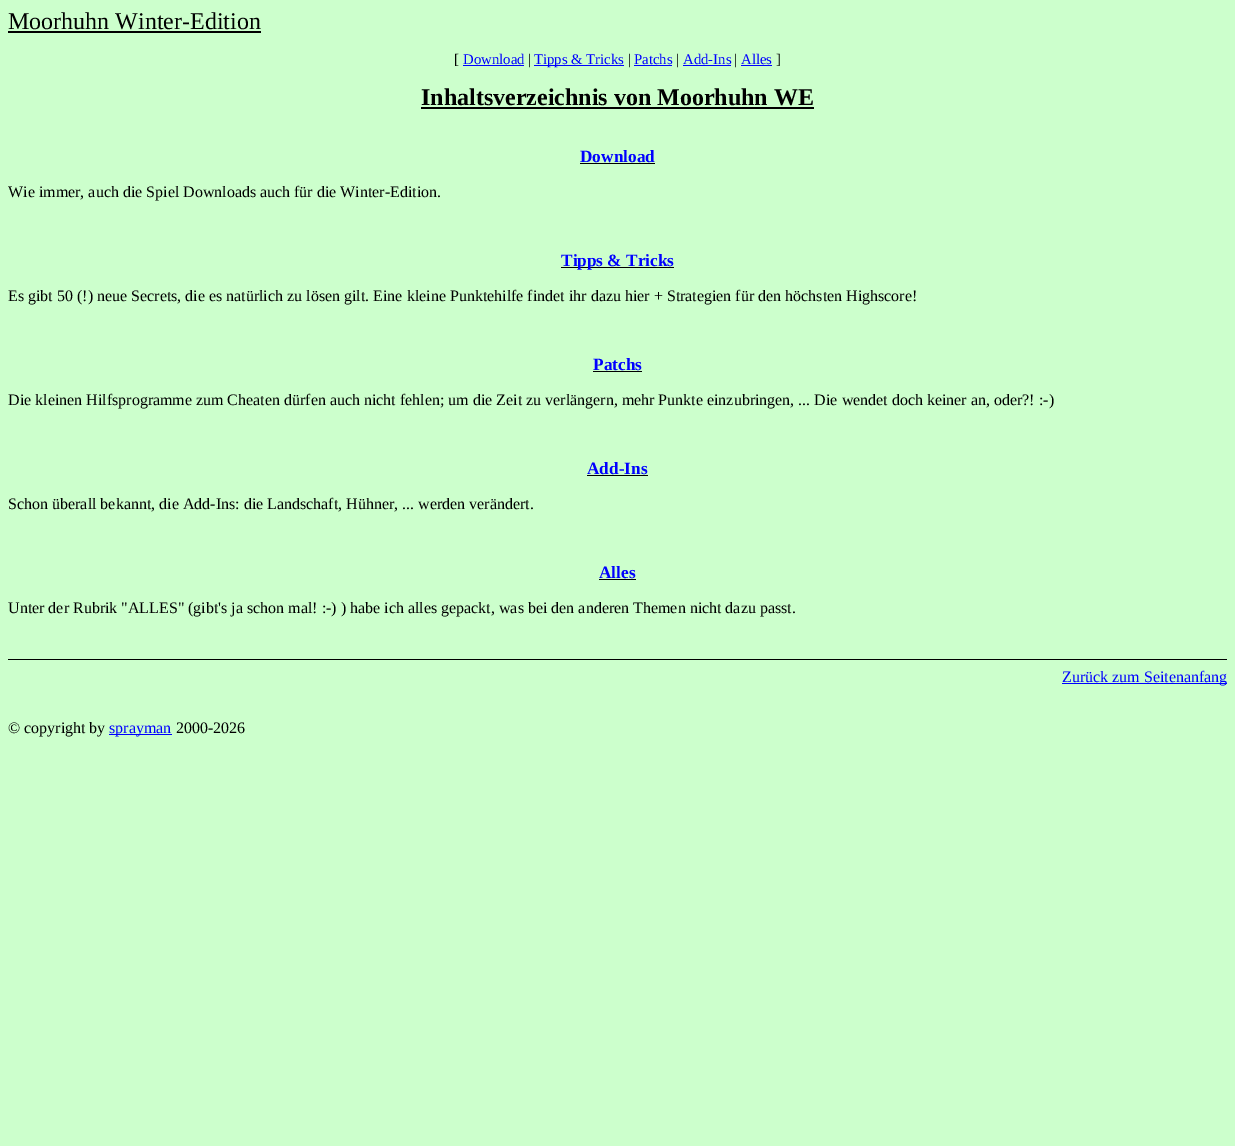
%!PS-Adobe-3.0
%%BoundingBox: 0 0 1235 1146
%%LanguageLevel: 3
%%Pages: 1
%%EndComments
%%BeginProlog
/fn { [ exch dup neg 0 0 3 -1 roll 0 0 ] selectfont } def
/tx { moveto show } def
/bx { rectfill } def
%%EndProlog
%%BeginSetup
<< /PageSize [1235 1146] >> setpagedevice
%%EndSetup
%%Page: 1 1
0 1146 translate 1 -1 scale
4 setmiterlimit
0.8 1 0.8 setrgbcolor
0 0 1235 1146 bx
/LiberationSerif-Regular 24 fn
0 setgray
(Moorhuhn Winter-Edition) 8 29 tx
8 31 253 2 bx
/LiberationSerif-Regular 14.75 fn
([) 454 64 tx
0 0 1 setrgbcolor
(Download) 463 64 tx
463 65 61 1 bx
0 setgray
(|) 528 64 tx
0 0 1 setrgbcolor
534 65 90 1 bx
(Tipps & Tricks) 534 64 tx
0 setgray
(|) 628 64 tx
0 0 1 setrgbcolor
(Patchs) 634 64 tx
634 65 38 1 bx
0 setgray
(|) 676 64 tx
0 0 1 setrgbcolor
(Add-Ins) 683 64 tx
683 65 48 1 bx
0 setgray
(|) 734 64 tx
0 0 1 setrgbcolor
(Alles) 741 64 tx
741 65 31 1 bx
0 setgray
(]) 776 64 tx
/LiberationSerif-Bold 24 fn
(Inhaltsverzeichnis von Moorhuhn WE) 421 105 tx
421 107 393 2 bx
/LiberationSerif-Bold 17.25 fn
0 0 1 setrgbcolor
(Download) 580 162 tx
0 setgray
580 163 75 1 bx
/LiberationSerif-Regular 16 fn
(Wie immer, auch die Spiel Downloads auch für die Winter-Edition.) 8 197 tx
561 267 113 1 bx
/LiberationSerif-Bold 17.25 fn
0 0 1 setrgbcolor
(Tipps & Tricks) 561 266 tx
/LiberationSerif-Regular 16 fn
0 setgray
(Es gibt 50 \(!\) neue Secrets, die es natürlich zu lösen gilt. Eine kleine Punktehilfe findet ihr dazu hier + Strategien für den höchsten Highscore!) 8 301 tx
/LiberationSerif-Bold 17.25 fn
0 0 1 setrgbcolor
(Patchs) 593 370 tx
0 setgray
593 371 49 1 bx
/LiberationSerif-Regular 16 fn
(Die kleinen Hilfsprogramme zum Cheaten dürfen auch nicht fehlen; um die Zeit zu verlängern, mehr Punkte einzubringen, ... Die wendet doch keiner an, oder?! :-\)) 8 405 tx
/LiberationSerif-Bold 17.25 fn
0 0 1 setrgbcolor
(Add-Ins) 587 474 tx
0 setgray
587 475 61 1 bx
/LiberationSerif-Regular 16 fn
(Schon überall bekannt, die Add-Ins: die Landschaft, Hühner, ... werden verändert.) 8 509 tx
/LiberationSerif-Bold 17.25 fn
0 0 1 setrgbcolor
(Alles) 599 578 tx
0 setgray
599 579 37 1 bx
/LiberationSerif-Regular 16 fn
(Unter der Rubrik "ALLES" \(gibt's ja schon mal! :-\) \) habe ich alles gepackt, was bei den anderen Themen nicht dazu passt.) 8 613 tx
8 659 1219 1 bx
0 0 1 setrgbcolor
1062 683 165 1 bx
(Zurück zum Seitenanfang) 1062 682 tx
0 setgray
(© copyright by) 8 733 tx
0 0 1 setrgbcolor
109 734 63 1 bx
(sprayman) 109 733 tx
0 setgray
(2000-2026) 176 733 tx
showpage
%%EOF
